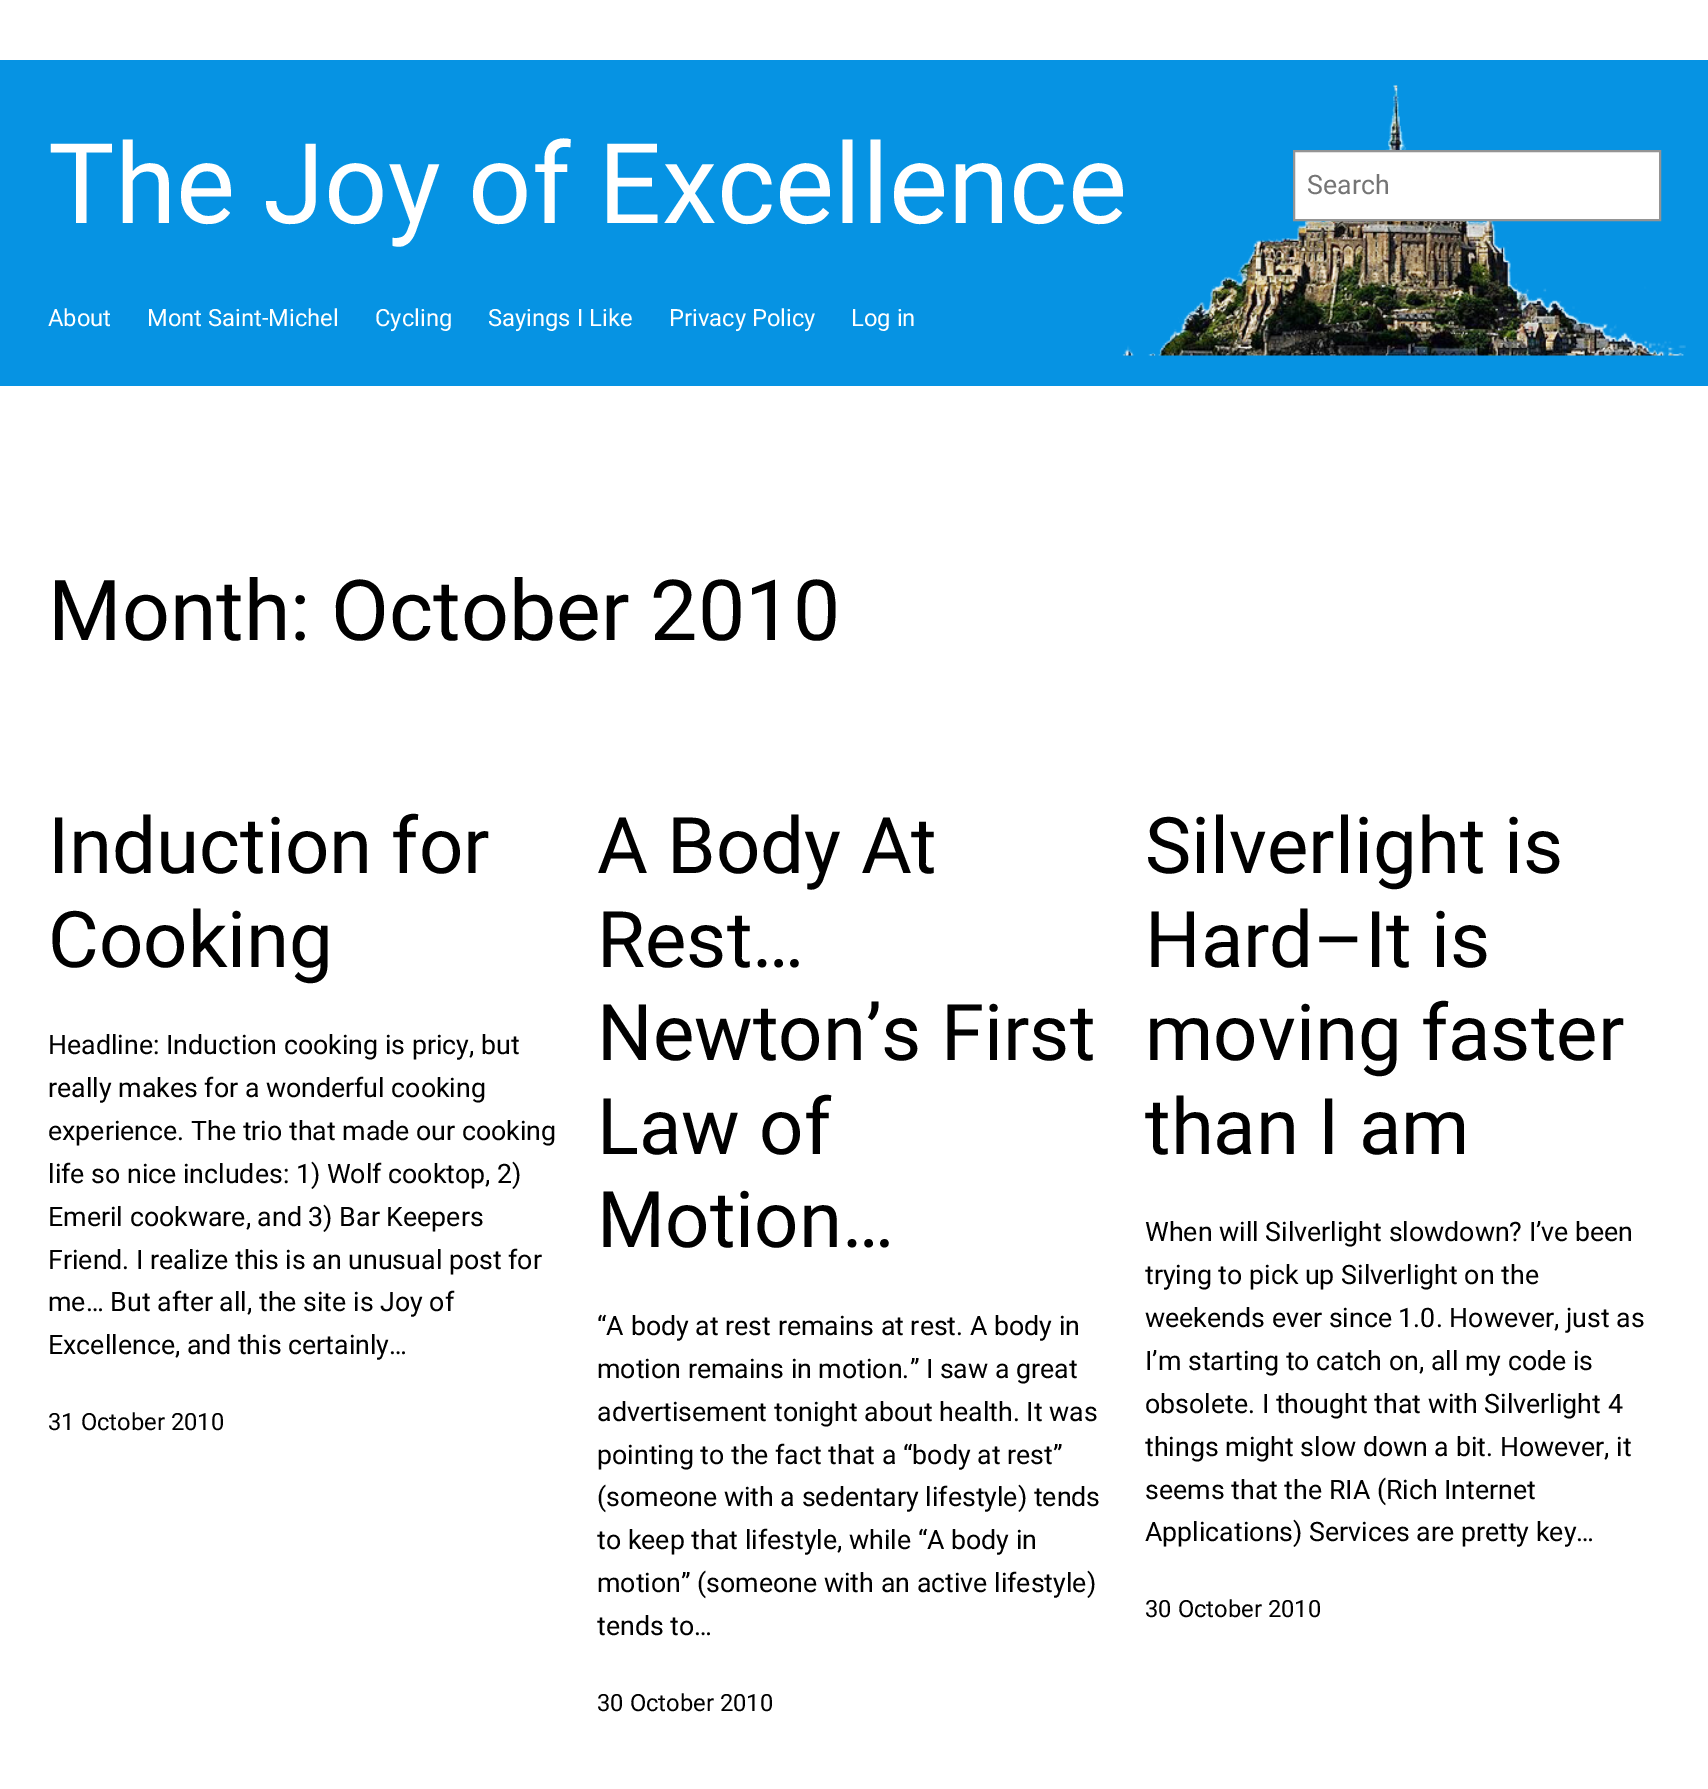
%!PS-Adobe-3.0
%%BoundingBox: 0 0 1708 1789
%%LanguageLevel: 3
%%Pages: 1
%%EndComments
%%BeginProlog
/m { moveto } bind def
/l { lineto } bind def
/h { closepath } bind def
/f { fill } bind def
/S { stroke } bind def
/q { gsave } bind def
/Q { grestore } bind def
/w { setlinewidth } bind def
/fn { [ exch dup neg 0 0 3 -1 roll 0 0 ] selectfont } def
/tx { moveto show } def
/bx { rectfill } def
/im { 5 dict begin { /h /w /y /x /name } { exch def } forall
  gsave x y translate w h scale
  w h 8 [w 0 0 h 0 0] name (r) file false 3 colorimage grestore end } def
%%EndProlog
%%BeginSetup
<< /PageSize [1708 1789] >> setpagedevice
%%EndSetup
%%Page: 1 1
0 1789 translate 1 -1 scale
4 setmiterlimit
1 setgray
0 0 1708 1789 bx
0.024 0.576 0.89 setrgbcolor
0 60 1708 326 bx
(image0.raw) 1122 85 564 271 im
/Roboto-Regular 111.5 fn
1 setgray
(The Joy of Excellence) 48 223 tx
1294 151 m 1660 151 l 1660 220 l 1294 220 l h q f Q
0.58 setgray
2 w
S
/Roboto-Regular 26.75 fn
0.459 setgray
(Search) 1307 194 tx
/Roboto-Regular 23.75 fn
1 setgray
(About) 48 326 tx
(Mont Saint-Michel) 147 326 tx
(Cycling) 375 326 tx
(Sayings I Like) 488 326 tx
(Privacy Policy) 669 326 tx
(Log in) 851 326 tx
/Roboto-Regular 84.25 fn
0 setgray
(Month: October 2010) 48 640 tx
/Roboto-Regular 78 fn
(Induction for) 48 873 tx
(Cooking) 48 967 tx
/Roboto-Regular 26.75 fn
(Headline: Induction cooking is pricy, but) 48 1054 tx
(really makes for a wonderful cooking) 48 1097 tx
(experience. The trio that made our cooking) 48 1140 tx
(life so nice includes: 1\) Wolf cooktop, 2\)) 48 1183 tx
(Emeril cookware, and 3\) Bar Keepers) 48 1226 tx
(Friend. I realize this is an unusual post for) 48 1269 tx
(me… But after all, the site is Joy of) 48 1311 tx
(Excellence, and this certainly…) 48 1354 tx
/Roboto-Regular 23.75 fn
(31 October 2010) 48 1430 tx
/Roboto-Regular 78 fn
(A Body At) 597 873 tx
(Rest…) 597 967 tx
(Newton’s First) 597 1060 tx
(Law of) 597 1154 tx
(Motion…) 597 1247 tx
/Roboto-Regular 26.75 fn
(“A body at rest remains at rest. A body in) 597 1335 tx
(motion remains in motion.” I saw a great) 597 1378 tx
(advertisement tonight about health. It was) 597 1421 tx
(pointing to the fact that a “body at rest”) 597 1464 tx
(\(someone with a sedentary lifestyle\) tends) 597 1506 tx
(to keep that lifestyle, while “A body in) 597 1549 tx
(motion” \(someone with an active lifestyle\)) 597 1592 tx
(tends to…) 597 1635 tx
/Roboto-Regular 23.75 fn
(30 October 2010) 597 1711 tx
/Roboto-Regular 78 fn
(Silverlight is) 1145 873 tx
(Hard–It is) 1145 967 tx
(moving faster) 1145 1060 tx
(than I am) 1145 1154 tx
/Roboto-Regular 26.75 fn
(When will Silverlight slowdown? I’ve been) 1145 1241 tx
(trying to pick up Silverlight on the) 1145 1284 tx
(weekends ever since 1.0. However, just as) 1145 1327 tx
(I’m starting to catch on, all my code is) 1145 1370 tx
(obsolete. I thought that with Silverlight 4) 1145 1413 tx
(things might slow down a bit. However, it) 1145 1456 tx
(seems that the RIA \(Rich Internet) 1145 1499 tx
(Applications\) Services are pretty key…) 1145 1541 tx
/Roboto-Regular 23.75 fn
(30 October 2010) 1145 1617 tx
showpage
%%EOF
